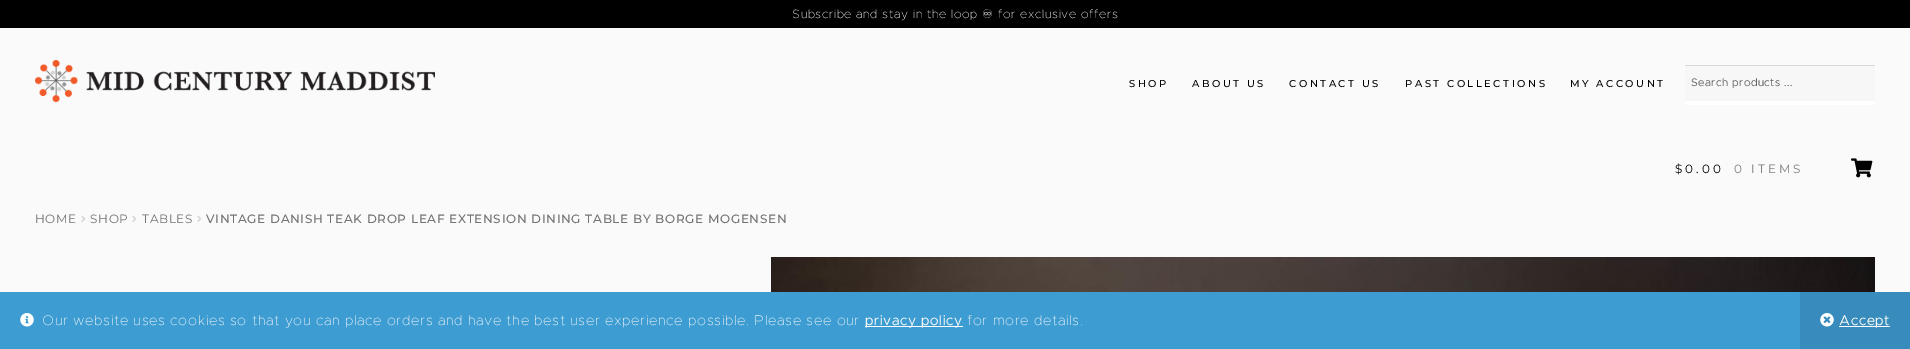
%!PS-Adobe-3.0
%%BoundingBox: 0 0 1910 349
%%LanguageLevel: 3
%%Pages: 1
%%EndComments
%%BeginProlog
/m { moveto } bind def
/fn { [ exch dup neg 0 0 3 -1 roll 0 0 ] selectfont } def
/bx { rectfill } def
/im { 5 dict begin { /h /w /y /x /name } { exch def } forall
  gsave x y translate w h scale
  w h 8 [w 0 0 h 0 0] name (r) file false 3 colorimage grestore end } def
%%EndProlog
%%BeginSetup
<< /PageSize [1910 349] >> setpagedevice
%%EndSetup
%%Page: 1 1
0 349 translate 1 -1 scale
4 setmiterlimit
0.98 setgray
0 0 1910 349 bx
0 setgray
0 0 1910 28 bx
/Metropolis-Thin 12 fn
0.98 setgray
792 18 m 0.7 0 (Subscribe and stay in the loop) ashow
/DejaVuSans-Regular 12 fn
982 18 m 0.7 0 (♾) ashow
/Metropolis-Thin 12 fn
998 18 m 0.7 0 (for exclusive offers) ashow
(image0.raw) 35 60 400 42 im
/Montserrat-Medium 10 fn
0 setgray
1129 87 m 2.5 0 (SHOP) ashow
1192 87 m 2.5 0 (ABOUT US) ashow
1289 87 m 2.5 0 (CONTACT US) ashow
1405 87 m 2.5 0 (PAST COLLECTIONS) ashow
1570 87 m 2.5 0 (MY ACCOUNT) ashow
1 setgray
1685 101 190 4 bx
0.969 setgray
1685 66 190 35 bx
0.847 setgray
1685 65 190 1 bx
/Metropolis-Regular 11 fn
0.38 setgray
1691 86 m 0.5 0 (Search products ...) ashow
/Montserrat-Regular 12 fn
0 setgray
1675 173 m 3 0 ($0.00) ashow
0.49 setgray
1734 173 m 3 0 (0 ITEMS) ashow
(image1.raw) 1851 158 22 20 im
0.447 setgray
35 223 m 0.7 0 (HOME) ashow
(image2.raw) 81 215 5 7 im
90 223 m 0.7 0 (SHOP) ashow
(image2.raw) 132 215 5 7 im
142 223 m 0.7 0 (TABLES) ashow
(image2.raw) 197 215 5 7 im
/Montserrat-Medium 12 fn
206 223 m 0.7 0 (VINTAGE DANISH TEAK DROP LEAF EXTENSION DINING TABLE BY BORGE MOGENSEN) ashow
(image3.raw) 771 257 1104 35 im
0.239 0.612 0.824 setrgbcolor
0 292 1800 57 bx
(image4.raw) 20 313 14 14 im
/Metropolis-Thin 14 fn
0.98 setgray
42 325 m 0.7 0 (Our website uses cookies so that you can place orders and have the best user experience possible. Please see our) ashow
1 setgray
865 326 98 1 bx
/Metropolis-Regular 14 fn
0.98 setgray
865 325 m 0.7 0 (privacy policy) ashow
/Metropolis-Thin 14 fn
967 325 m 0.7 0 (for more details.) ashow
0.216 0.549 0.741 setrgbcolor
1800 292 110 57 bx
(image5.raw) 1820 313 14 14 im
1 setgray
1839 326 51 1 bx
/Metropolis-Regular 14 fn
0.98 setgray
1839 325 m 0.7 0 (Accept) ashow
showpage
%%EOF
